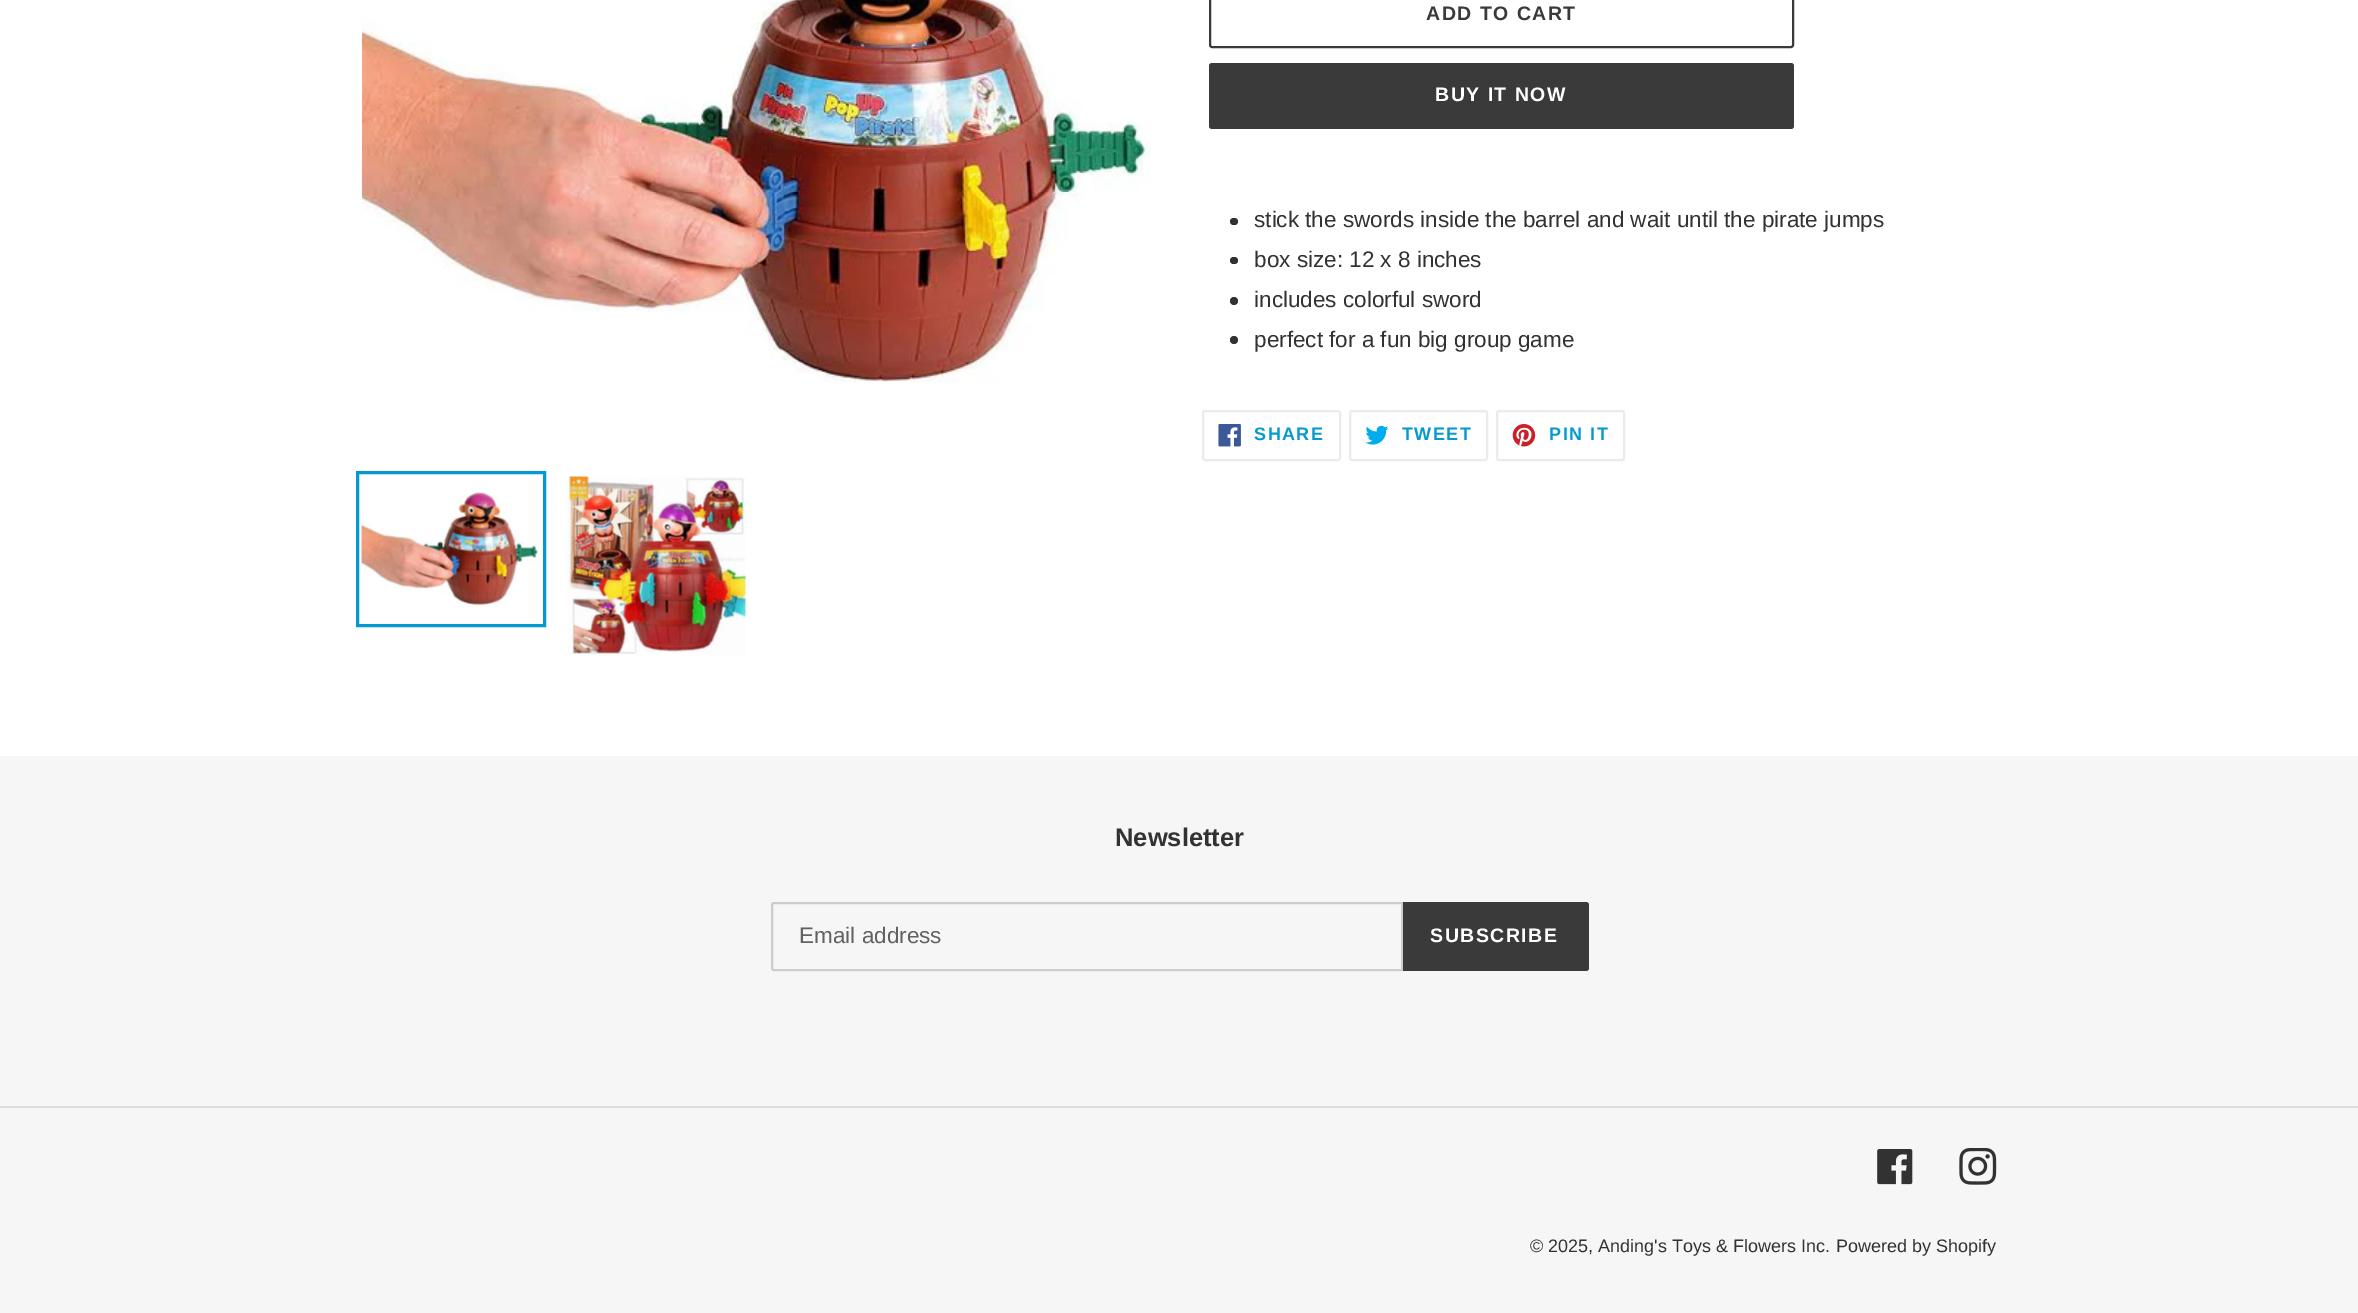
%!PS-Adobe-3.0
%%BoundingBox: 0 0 2358 1313
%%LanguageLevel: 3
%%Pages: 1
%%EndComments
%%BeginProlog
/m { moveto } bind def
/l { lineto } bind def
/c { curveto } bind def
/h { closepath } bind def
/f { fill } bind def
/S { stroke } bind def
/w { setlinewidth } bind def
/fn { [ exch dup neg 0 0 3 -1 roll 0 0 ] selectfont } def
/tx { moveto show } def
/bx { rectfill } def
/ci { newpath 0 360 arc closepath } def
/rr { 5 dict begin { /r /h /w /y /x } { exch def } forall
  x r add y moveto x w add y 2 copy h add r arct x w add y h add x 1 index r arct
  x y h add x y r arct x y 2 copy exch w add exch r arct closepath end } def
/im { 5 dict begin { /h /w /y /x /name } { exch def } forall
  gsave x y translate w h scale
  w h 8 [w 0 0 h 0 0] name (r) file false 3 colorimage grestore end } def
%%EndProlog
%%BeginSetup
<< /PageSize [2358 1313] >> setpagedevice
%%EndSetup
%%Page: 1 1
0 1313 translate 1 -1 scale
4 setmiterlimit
1 setgray
0 0 2358 1313 bx
(image0.raw) 362 0 789 383 im
0.016 0.6 0.82 setrgbcolor
3 w
357.5 472.5 187 153 rectstroke
(image1.raw) 361 490 177 117 im
(image2.raw) 566 476 180 180 im
0.227 setgray
2 w
1210 -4 583 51 2 rr S
/LiberationSans-Bold 19.5 fn
1426 20 m 1.5 0 (ADD TO CART) ashow
1209 63 585 66 3 rr f
1 setgray
1435 101 m 1.5 0 (BUY IT NOW) ashow
0.2 0.196 0.196 setrgbcolor
1230 218 8 7 3.5 rr f
/LiberationSans-Regular 22.5 fn
(stick the swords inside the barrel and wait until the pirate jumps) 1254 227 tx
1230 257 8 7 3.5 rr f
(box size: 12 x 8 inches) 1254 267 tx
1234 301 4 ci f
(includes colorful sword) 1254 307 tx
1234 340 4 ci f
(perfect for a fun big group game) 1254 347 tx
0.922 setgray
1203 411 137 49 2 rr S
(image3.raw) 1218 424 23 23 im
/LiberationSans-Bold 18 fn
0.016 0.6 0.82 setrgbcolor
1254 440 m 1.5 0 (SHARE) ashow
0.922 setgray
1350 411 137 49 2 rr S
(image4.raw) 1365 425 24 20 im
0.016 0.6 0.82 setrgbcolor
1402 440 m 1.5 0 (TWEET) ashow
0.922 setgray
1497 411 127 49 2 rr S
(image5.raw) 1512 424 24 23 im
0.016 0.6 0.82 setrgbcolor
1549 440 m 1.5 0 (PIN IT) ashow
0.965 setgray
0 756 2358 557 bx
/LiberationSans-Bold 25.5 fn
0.2 0.196 0.196 setrgbcolor
(Newsletter) 1115 846 tx
0.8 setgray
774 903 m 1402 903 l 1402 970 l 774 970 l 773 970 772 969 772 968 c 772 905 l 772 904 773 903 774 903 c h S
/LiberationSans-Regular 22.5 fn
0.384 setgray
(Email address) 799 943 tx
0.227 setgray
1403 902 m 1586 902 l 1587.5 902 1589 903.5 1589 905 c 1589 968 l 1589 969.5 1587.5 971 1586 971 c 1403 971 l h f
/LiberationSans-Bold 19.5 fn
1 setgray
1430 942 m 1.5 0 (SUBSCRIBE) ashow
0.867 setgray
0 1106 2358 2 bx
(image6.raw) 1877 1149 36 36 im
(image7.raw) 1959 1148 38 37 im
/LiberationSans-Regular 18 fn
0.2 0.196 0.196 setrgbcolor
(© 2025, Anding's Toys & Flowers Inc.) 1530 1252 tx
(Powered by Shopify) 1836 1252 tx
showpage
%%EOF
